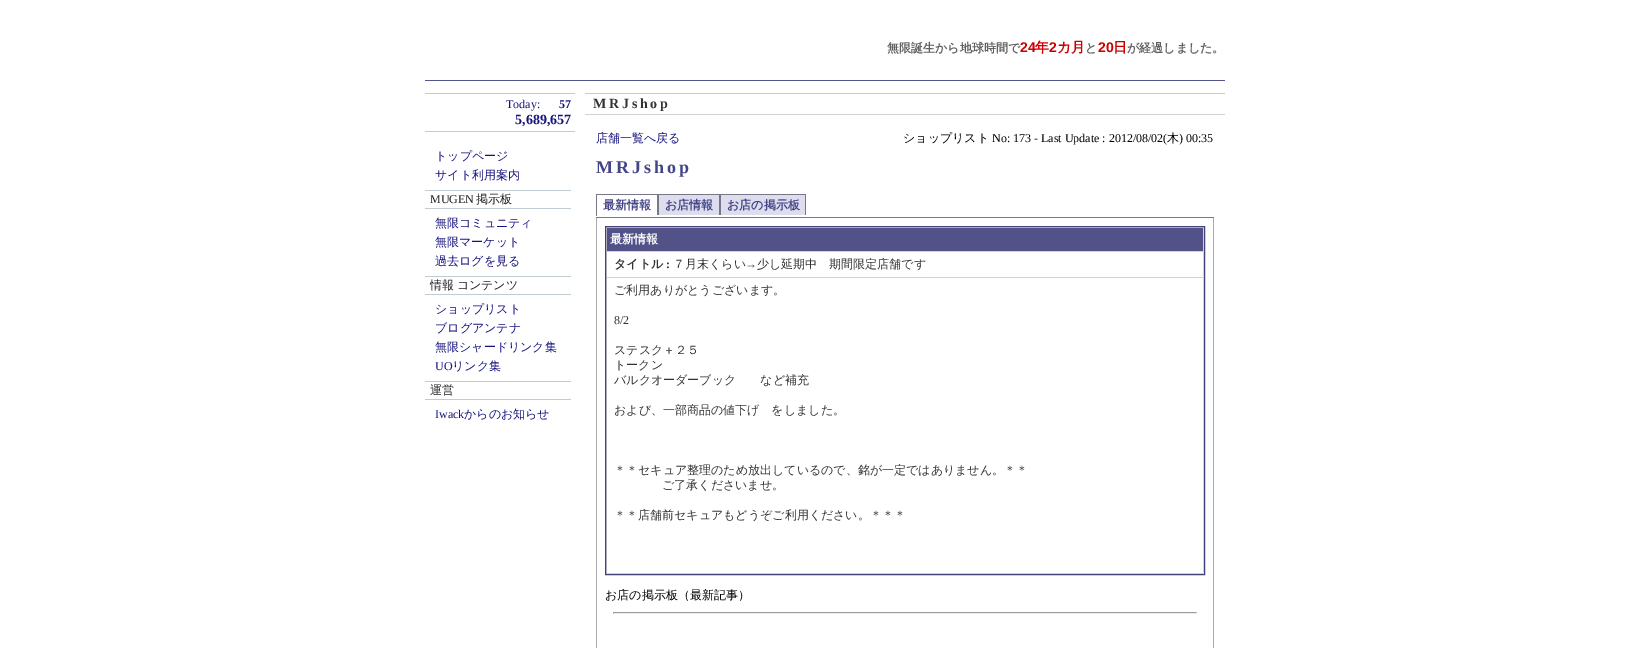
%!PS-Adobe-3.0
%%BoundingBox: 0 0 1649 648
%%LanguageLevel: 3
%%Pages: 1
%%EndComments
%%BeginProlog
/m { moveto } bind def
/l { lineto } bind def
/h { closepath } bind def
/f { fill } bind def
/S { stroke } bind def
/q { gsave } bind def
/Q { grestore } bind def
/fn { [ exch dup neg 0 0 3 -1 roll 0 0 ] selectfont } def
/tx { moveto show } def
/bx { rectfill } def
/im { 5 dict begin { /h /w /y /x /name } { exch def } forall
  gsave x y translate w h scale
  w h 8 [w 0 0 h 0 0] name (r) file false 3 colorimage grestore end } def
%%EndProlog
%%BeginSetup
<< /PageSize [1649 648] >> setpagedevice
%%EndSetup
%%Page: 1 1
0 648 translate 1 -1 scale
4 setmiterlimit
1 setgray
0 0 1649 648 bx
0.333 0.333 0.553 setrgbcolor
425 80 800 1 bx
/WenQuanYiZenHei-Bold 12 fn
0.376 setgray
(無限誕生から地球時間で) 887 52 tx
/LiberationSans-Bold 14 fn
0.8 0 0 setrgbcolor
(24) 1020 52 tx
/WenQuanYiZenHei-Bold 14 fn
(年) 1035 52 tx
/LiberationSans-Bold 14 fn
(2) 1049 52 tx
/WenQuanYiZenHei-Bold 14 fn
(カ月) 1057 52 tx
/WenQuanYiZenHei-Bold 12 fn
0.376 setgray
(と) 1085 52 tx
/LiberationSans-Bold 14 fn
0.8 0 0 setrgbcolor
(20) 1098 52 tx
/WenQuanYiZenHei-Bold 14 fn
(日) 1113 52 tx
/WenQuanYiZenHei-Bold 12 fn
0.376 setgray
(が経過しました。) 1127 52 tx
0.757 0.796 0.824 setrgbcolor
425 93 150 1 bx
425 131 150 1 bx
/LiberationSerif-Regular 12 fn
0.09 0.078 0.494 setrgbcolor
(Today:) 506 108 tx
/LiberationSerif-Bold 12 fn
(57) 559 108 tx
/LiberationSerif-Bold 14 fn
(5,689,657) 515 124 tx
/WenQuanYiZenHei-Medium 12 fn
(トップページ) 435 160 tx
(サイト利用案内) 435 179 tx
0.757 0.796 0.824 setrgbcolor
425 190 146 1 bx
425 208 146 1 bx
/LiberationSerif-Regular 12 fn
0.133 setgray
(MUGEN) 430 203 tx
/WenQuanYiZenHei-Medium 12 fn
(掲示板) 476 203 tx
0.09 0.078 0.494 setrgbcolor
(無限コミュニティ) 435 227 tx
(無限マーケット) 435 246 tx
(過去ログを見る) 435 265 tx
0.757 0.796 0.824 setrgbcolor
425 276 146 1 bx
425 294 146 1 bx
0.133 setgray
430 289 m -1 0 32 (情報 コンテンツ) widthshow
0.09 0.078 0.494 setrgbcolor
(ショップリスト) 435 313 tx
(ブログアンテナ) 435 332 tx
(無限シャードリンク集) 435 351 tx
/LiberationSerif-Regular 12 fn
(UO) 435 370 tx
/WenQuanYiZenHei-Medium 12 fn
(リンク集) 452 370 tx
0.757 0.796 0.824 setrgbcolor
425 381 146 1 bx
425 399 146 1 bx
0.133 setgray
(運営) 430 394 tx
/LiberationSerif-Regular 12 fn
0.09 0.078 0.494 setrgbcolor
(Iwack) 435 418 tx
/WenQuanYiZenHei-Medium 12 fn
(からのお知らせ) 464 418 tx
0.8 setgray
585 93 640 1 bx
0.808 0.827 0.839 setrgbcolor
585 114 640 1 bx
/LiberationSerif-Bold 14 fn
0.2 setgray
593 108 m 2.75 0 (MRJshop) ashow
/WenQuanYiZenHei-Medium 12 fn
0.09 0.078 0.494 setrgbcolor
(店舗一覧へ戻る) 596 142 tx
0 setgray
(ショップリスト) 903 142 tx
/LiberationSerif-Regular 12 fn
(No: 173 - Last Update : 2012/08/02\() 992 142 tx
/WenQuanYiZenHei-Medium 12 fn
(木) 1167 142 tx
/LiberationSerif-Regular 12 fn
(\) 00:35) 1179 142 tx
/LiberationSerif-Bold 18 fn
0.267 0.267 0.533 setrgbcolor
596 173 m 3 0 (MRJshop) ashow
0.467 0.467 0.533 setrgbcolor
596 217 618 1 bx
/WenQuanYiZenHei-Bold 12 fn
0.267 0.267 0.533 setrgbcolor
(最新情報) 603 209 tx
0.467 0.467 0.533 setrgbcolor
596 194 210 1 bx
657 194 1 22 bx
1 setgray
657 215 1 1 bx
0.467 0.467 0.533 setrgbcolor
596 194 1 22 bx
0.867 0.867 0.933 setrgbcolor
659 195 60 20 bx
0.267 0.267 0.533 setrgbcolor
(お店情報) 665 209 tx
0.467 0.467 0.533 setrgbcolor
719 194 2 21 bx
658 194 1 21 bx
0.867 0.867 0.933 setrgbcolor
721 195 84 20 bx
0.267 0.267 0.533 setrgbcolor
(お店の掲示板) 727 209 tx
0.467 0.467 0.533 setrgbcolor
805 194 1 21 bx
0.667 setgray
1213 218 1 430 bx
596 218 1 430 bx
0.808 0.827 0.839 setrgbcolor
605.5 226.5 m 1204.5 226.5 l 1204.5 574.5 l 605.5 574.5 l h q f Q
0.263 0.263 0.475 setrgbcolor
S
0.322 0.322 0.533 setrgbcolor
607 228 596 23 bx
1 setgray
(最新情報) 610 243 tx
607 252 596 25 bx
0.2 setgray
(タイトル) 614 268 tx
/LiberationSerif-Bold 12 fn
(:) 666 268 tx
/WenQuanYiZenHei-Medium 12 fn
(７月末くらい) 673 268 tx
/LiberationSerif-Regular 12 fn
(→) 745 268 tx
/WenQuanYiZenHei-Medium 12 fn
(少し延期中　期間限定店舗です) 757 268 tx
1 setgray
607 278 596 295 bx
0.2 setgray
(ご利用ありがとうございます。) 614 294 tx
/LiberationSerif-Regular 12 fn
(8/2) 614 324 tx
/WenQuanYiZenHei-Medium 12 fn
(ステスク＋２５) 614 354 tx
(トークン) 614 369 tx
(バルクオーダーブック　　など補充) 614 384 tx
(および、一部商品の値下げ　をしました。) 614 414 tx
(＊＊セキュア整理のため放出しているので、銘が一定ではありません。＊＊) 614 474 tx
(ご了承くださいませ。) 662 489 tx
(＊＊店舗前セキュアもどうぞご利用ください。＊＊＊) 614 519 tx
0 setgray
(お店の掲示板（最新記事）) 605 599 tx
(image0.raw) 613 612 584 2 im
showpage
%%EOF
